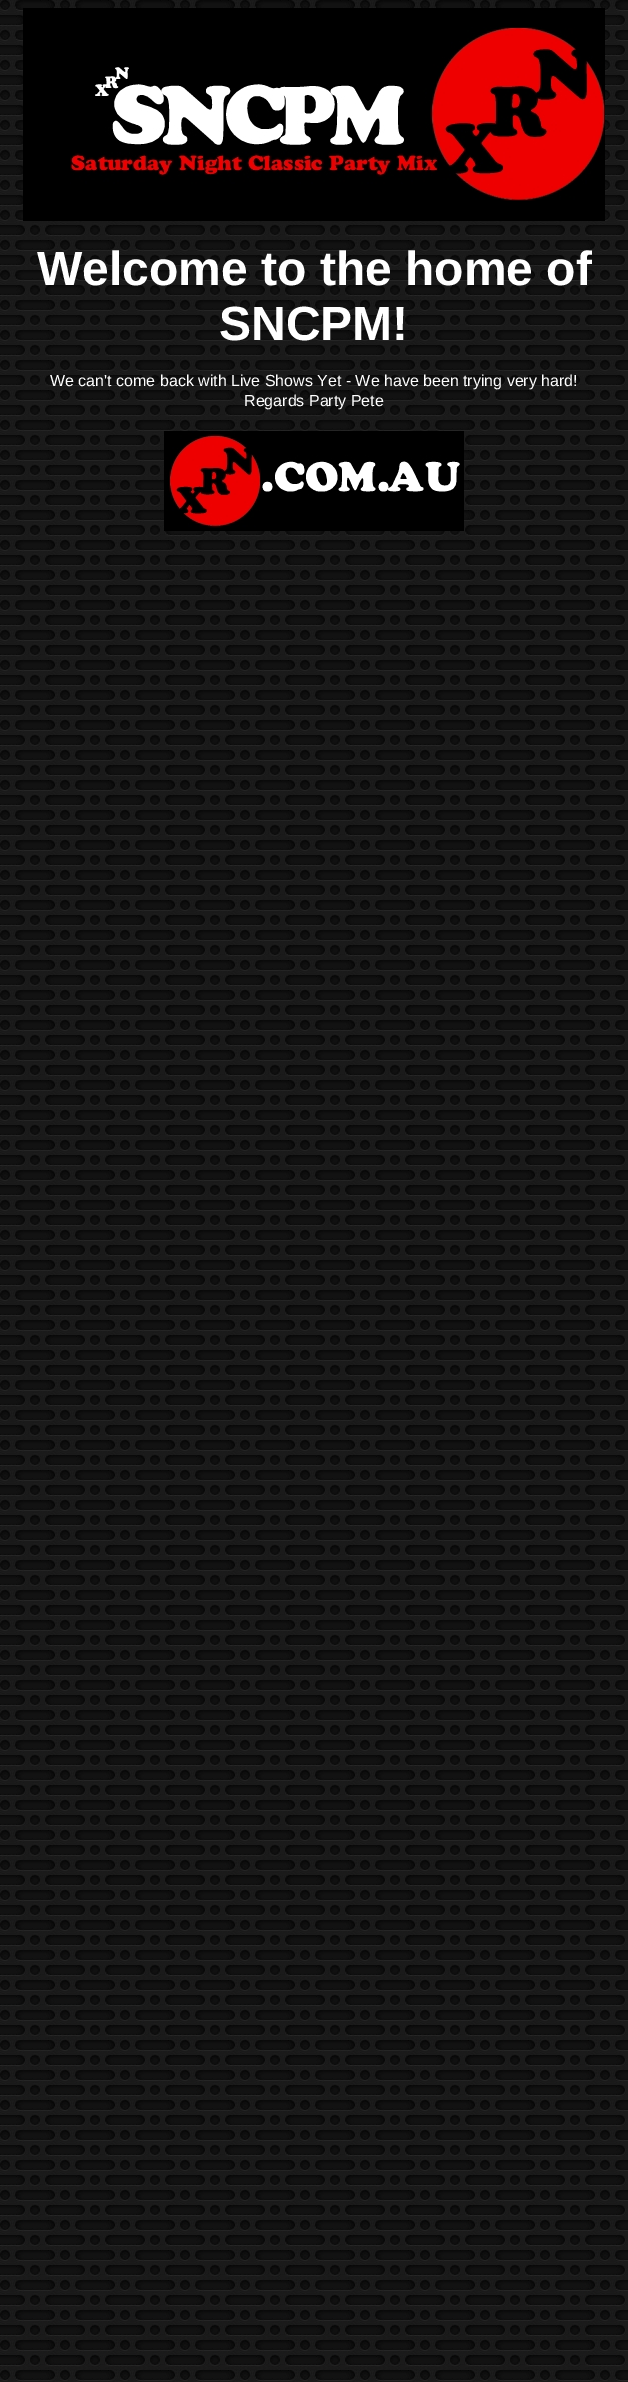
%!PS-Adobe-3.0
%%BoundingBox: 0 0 628 2382
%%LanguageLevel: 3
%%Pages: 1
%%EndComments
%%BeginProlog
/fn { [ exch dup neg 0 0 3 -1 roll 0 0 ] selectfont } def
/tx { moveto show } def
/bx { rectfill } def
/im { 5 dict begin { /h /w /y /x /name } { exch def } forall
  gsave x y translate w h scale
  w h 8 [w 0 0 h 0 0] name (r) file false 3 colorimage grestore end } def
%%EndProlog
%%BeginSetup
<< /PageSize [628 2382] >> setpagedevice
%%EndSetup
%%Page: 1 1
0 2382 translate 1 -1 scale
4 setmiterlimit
1 setgray
0 0 628 2382 bx
(image0.raw) 0 0 628 2382 im
0 setgray
23 8 582 213 bx
(image1.raw) 70 27 535 174 im
/LiberationSans-Bold 48 fn
1 setgray
(Welcome to the home of) 37 285 tx
(SNCPM!) 219 340 tx
/LiberationSans-Regular 16 fn
(We can't come back with Live Shows Yet - We have been trying very hard!) 50 386 tx
(Regards Party Pete) 244 406 tx
(image2.raw) 164 431 300 100 im
showpage
%%EOF
